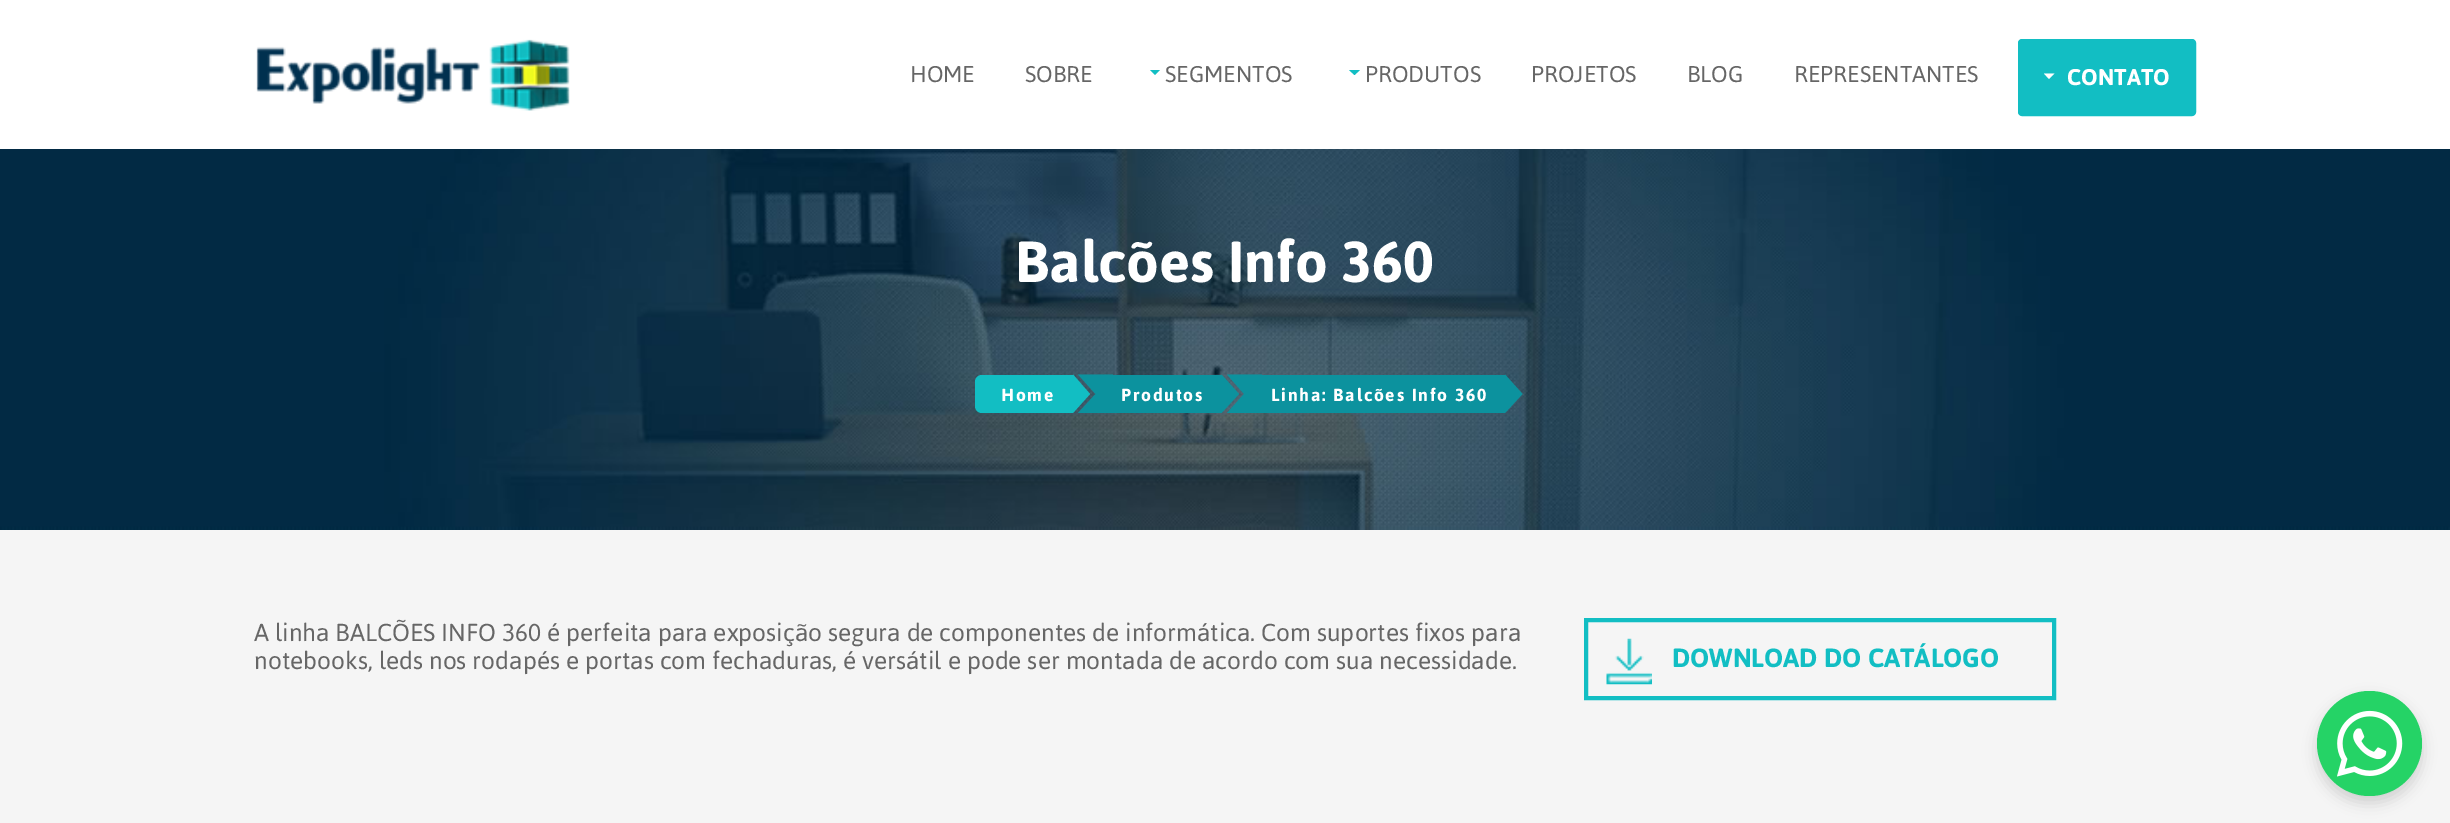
%!PS-Adobe-3.0
%%BoundingBox: 0 0 2450 823
%%LanguageLevel: 3
%%Pages: 1
%%EndComments
%%BeginProlog
/m { moveto } bind def
/l { lineto } bind def
/c { curveto } bind def
/h { closepath } bind def
/f { fill } bind def
/S { stroke } bind def
/q { gsave } bind def
/Q { grestore } bind def
/w { setlinewidth } bind def
/fn { [ exch dup neg 0 0 3 -1 roll 0 0 ] selectfont } def
/tx { moveto show } def
/bx { rectfill } def
/al { dup .setfillconstantalpha .setstrokeconstantalpha } def
/ci { newpath 0 360 arc closepath } def
/rr { 5 dict begin { /r /h /w /y /x } { exch def } forall
  x r add y moveto x w add y 2 copy h add r arct x w add y h add x 1 index r arct
  x y h add x y r arct x y 2 copy exch w add exch r arct closepath end } def
/sh { 12 dict begin { /a /b /q /h /w /y /x } { exch def } forall gsave /was 0 def
  9 -2 -9 { dup b mul 4 div /e exch def 1 sub .425 mul 2.718 exch exp 1 add a .99 .min exch div /now exch def
    1 1 now sub 1 was sub div sub al /was now def
    w h .min e 2 mul add 0 gt { x e sub y e sub w e 2 mul add h e 2 mul add
      q e add b .6 mul add w h .min 2 div e add .min 0 .max rr fill } if } for grestore end } def
/im { 5 dict begin { /h /w /y /x /name } { exch def } forall
  gsave x y translate w h scale
  w h 8 [w 0 0 h 0 0] name (r) file false 3 colorimage grestore end } def
%%EndProlog
%%BeginSetup
<< /PageSize [2450 823] /PageUsesTransparency true >> setpagedevice
%%EndSetup
%%Page: 1 1
0 .pushpdf14devicefilter
0 823 translate 1 -1 scale
4 setmiterlimit
1 setgray
0 0 2450 823 bx
(image0.raw) 256 39 314 72 im
/Asap-Regular 22.75 fn
0.4 setgray
(HOME) 910 82 tx
(SOBRE) 1025 82 tx
0.071 0.745 0.765 setrgbcolor
1150 70 m 1160 70 l 1155 75 l h f
0.4 setgray
(SEGMENTOS) 1165 82 tx
0.071 0.745 0.765 setrgbcolor
1349 70 m 1360 70 l 1354.5 75 l h f
0.4 setgray
(PRODUTOS) 1365 82 tx
(PROJETOS) 1531 82 tx
(BLOG) 1687 82 tx
(REPRESENTANTES) 1794 82 tx
0.071 0.745 0.765 setrgbcolor
2019 40 176 75 3 rr q f Q
2 w
S
1 setgray
2044 73.5 m 2054.5 73.5 l 2049 79 l h f
/Asap-Bold 22.75 fn
(CONTATO) 2067 85 tx
(image1.raw) 0 149 2450 381 im
/Asap-Bold 57.75 fn
(Balcões Info 360) 1015 282 tx
0.071 0.745 0.765 setrgbcolor
982 375 m 1073 375 l 1073 413 l 982 413 l 978 413 975 410 975 406 c 975 382 l 975 378 978 375 982 375 c h f
/Asap-Bold 17.5 fn
1 setgray
1001 401 m 1.75 0 (Home) ashow
0.071 0.745 0.765 setrgbcolor
1073 413 m 1073 374.5 l 1090 394 l h f
0.047 0.573 0.62 setrgbcolor
1113 375 109 38 bx
1078 374.5 m 1113 374.5 l 1095.5 394 l h f
1096 375 17 38 bx
1113 413 m 1078 413 l 1095.5 394 l h f
1 setgray
1121 401 m 1.75 0 (Produtos) ashow
0.047 0.573 0.62 setrgbcolor
1221.5 413 m 1221.5 374.5 l 1239 394 l h f
1262 375 243 38 bx
1227 374.5 m 1262 374.5 l 1244 394 l h f
1244 375 18 38 bx
1262 413 m 1227 413 l 1244 394 l h f
1 setgray
1271 401 m 1.75 0 (Linha: Balcões Info 360) ashow
0.047 0.573 0.62 setrgbcolor
1505 413 m 1505 374.5 l 1522.5 394 l h f
0.961 setgray
0 530 2450 293 bx
/Asap-Regular 24.5 fn
0.4 setgray
(A linha BALCÕES INFO 360 é perfeita para exposição segura de componentes de informática. Com suportes fixos para) 254 641 tx
(notebooks, leds nos rodapés e portas com fechaduras, é versátil e pode ser montada de acordo com sua necessidade.) 254 669 tx
0.071 0.745 0.765 setrgbcolor
4 w
1586 620 468 78 rectstroke
(image2.raw) 1606 638 46 47 im
/Asap-Bold 26.25 fn
(DOWNLOAD DO CATÁLOGO) 1672 667 tx
0 setgray
2317 698 105 105 52.5 7 0.15 sh
0.145 0.827 0.4 setrgbcolor
2369.5 743.5 52.5 ci f
(image3.raw) 2337 710 66 67 im
.poppdf14devicefilter showpage
%%EOF
